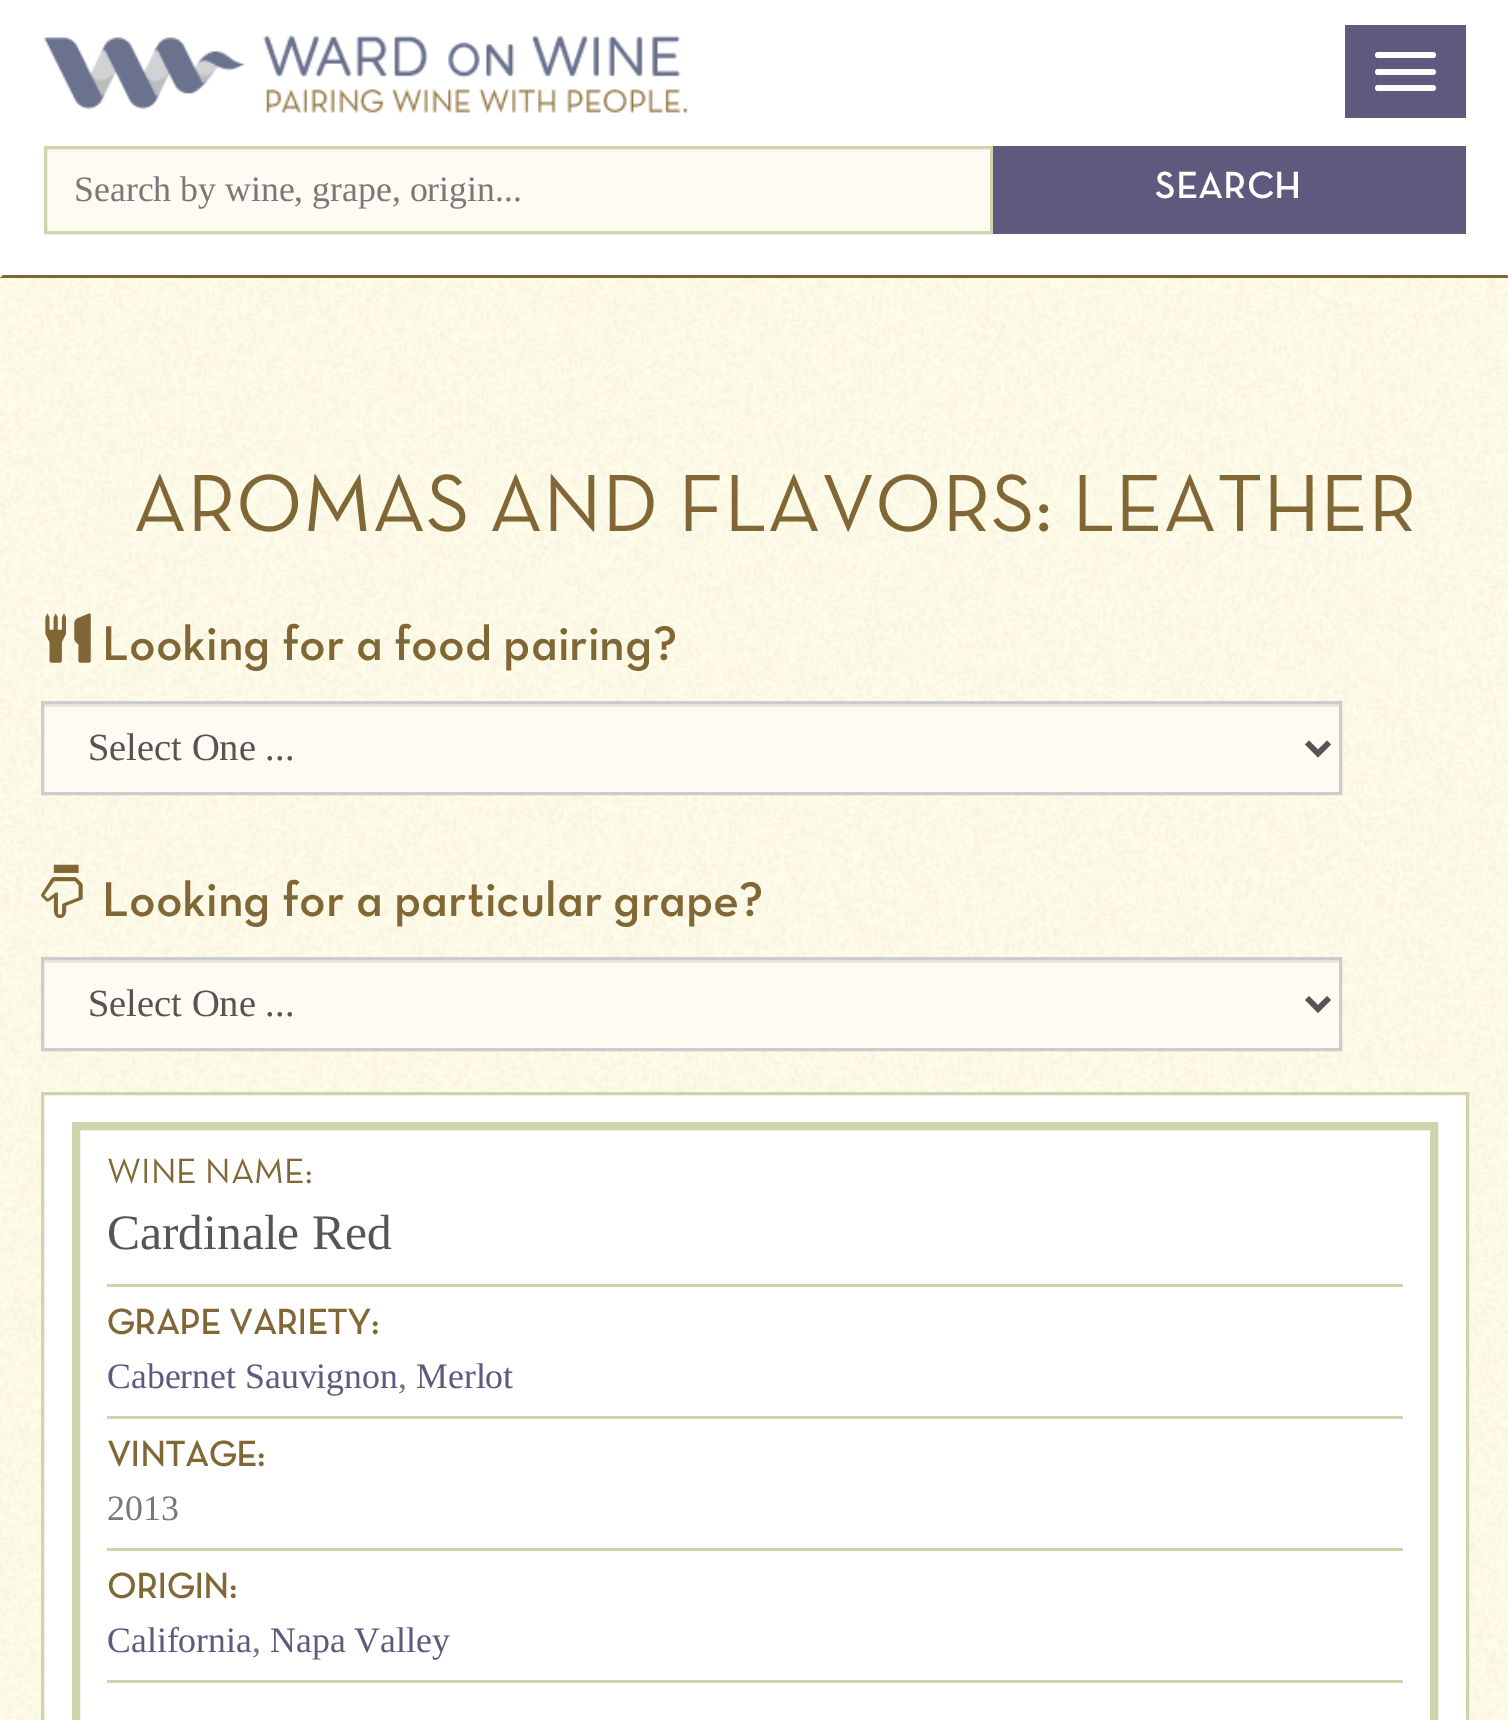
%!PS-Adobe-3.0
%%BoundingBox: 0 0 1508 1720
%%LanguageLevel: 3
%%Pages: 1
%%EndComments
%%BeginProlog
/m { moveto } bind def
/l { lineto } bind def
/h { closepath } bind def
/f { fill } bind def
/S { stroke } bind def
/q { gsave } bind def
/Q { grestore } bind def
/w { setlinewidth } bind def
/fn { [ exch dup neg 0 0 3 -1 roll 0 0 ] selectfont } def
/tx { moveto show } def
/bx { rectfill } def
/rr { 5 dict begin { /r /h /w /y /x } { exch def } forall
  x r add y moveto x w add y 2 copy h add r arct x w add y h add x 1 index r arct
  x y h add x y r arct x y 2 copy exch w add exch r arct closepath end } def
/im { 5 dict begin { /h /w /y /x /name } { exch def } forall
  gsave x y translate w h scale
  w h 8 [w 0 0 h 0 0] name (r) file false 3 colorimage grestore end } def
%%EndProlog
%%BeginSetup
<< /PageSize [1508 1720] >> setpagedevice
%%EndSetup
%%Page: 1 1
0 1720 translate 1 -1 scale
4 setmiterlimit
1 setgray
0 0 1508 1720 bx
(image0.raw) 0 278 1508 1442 im
0.502 0.404 0.208 setrgbcolor
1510 278 m 0 278 l 3 275 l 1507 275 l h f
(image1.raw) 44 35 644 78 im
0.369 0.353 0.49 setrgbcolor
1345 25 121 93 bx
1 setgray
1375 52 61 6 3 rr f
1375 69 61 6 3 rr f
1375 85 61 6 3 rr f
1 0.98 0.949 setrgbcolor
45.5 147.5 m 991.5 147.5 l 991.5 232.5 l 45.5 232.5 l h q f Q
0.816 0.831 0.675 setrgbcolor
3 w
S
/LiberationSerif-Regular 35.75 fn
0.471 setgray
(Search by wine, grape, origin...) 74 201 tx
0.369 0.353 0.49 setrgbcolor
993 146 473 88 bx
/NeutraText-Medium 38.5 fn
1 setgray
(SEARCH) 1155 198 tx
/NeutraText-Regular 82.5 fn
0.502 0.404 0.208 setrgbcolor
(AROMAS AND FLAVORS: LEATHER) 133 531 tx
(image2.raw) 45 613 46 50 im
/NeutraText-Medium 49.5 fn
(Looking for a food pairing?) 102 660 tx
1 0.98 0.949 setrgbcolor
44 707 1295 85 bx
0.925 0.906 0.878 setrgbcolor
44 704 1295 3 bx
0.8 setgray
42.5 702.5 1298 91 rectstroke
0.333 setgray
5.5 w
1307 742.5 m 1318 753.5 l 1329 742.5 l S
/LiberationSerif-Regular 38.5 fn
(Select One ...) 88 760 tx
(image3.raw) 41 864 42 55 im
/NeutraText-Medium 49.5 fn
0.502 0.404 0.208 setrgbcolor
(Looking for a particular grape?) 102 916 tx
1 0.98 0.949 setrgbcolor
44 963 1295 85 bx
0.925 0.906 0.878 setrgbcolor
44 960 1295 3 bx
0.8 setgray
3 w
42.5 958.5 1298 91 rectstroke
0.333 setgray
5.5 w
1307 998 m 1318 1009 l 1329 998 l S
/LiberationSerif-Regular 38.5 fn
(Select One ...) 88 1016 tx
1 setgray
42.5 1093.5 m 1467.5 1093.5 l 1467.5 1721.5 l 42.5 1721.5 l h q f Q
0.816 0.831 0.675 setrgbcolor
3 w
S
8 w
76 1126 1358 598 rectstroke
107 1284 1296 3 bx
/NeutraText-Regular 35.75 fn
0.502 0.404 0.208 setrgbcolor
(WINE NAME:) 107 1183 tx
/LiberationSerif-Regular 49.5 fn
0.333 setgray
(Cardinale Red) 107 1249 tx
/NeutraText-Bold 35.75 fn
0.502 0.404 0.208 setrgbcolor
(GRAPE VARIETY:) 107 1334 tx
0.816 0.831 0.675 setrgbcolor
107 1416 1296 3 bx
/LiberationSerif-Regular 35.75 fn
0.369 0.353 0.49 setrgbcolor
(Cabernet Sauvignon) 107 1388 tx
0.471 setgray
(,) 398 1388 tx
0.369 0.353 0.49 setrgbcolor
(Merlot) 416 1388 tx
/NeutraText-Bold 35.75 fn
0.502 0.404 0.208 setrgbcolor
(VINTAGE:) 107 1466 tx
0.816 0.831 0.675 setrgbcolor
107 1548 1296 3 bx
/LiberationSerif-Regular 35.75 fn
0.471 setgray
(2013) 107 1520 tx
/NeutraText-Bold 35.75 fn
0.502 0.404 0.208 setrgbcolor
(ORIGIN:) 107 1598 tx
0.816 0.831 0.675 setrgbcolor
107 1680 1296 3 bx
/LiberationSerif-Regular 35.75 fn
0.369 0.353 0.49 setrgbcolor
(California) 107 1652 tx
0.471 setgray
(,) 252 1652 tx
0.369 0.353 0.49 setrgbcolor
(Napa Valley) 270 1652 tx
showpage
%%EOF
